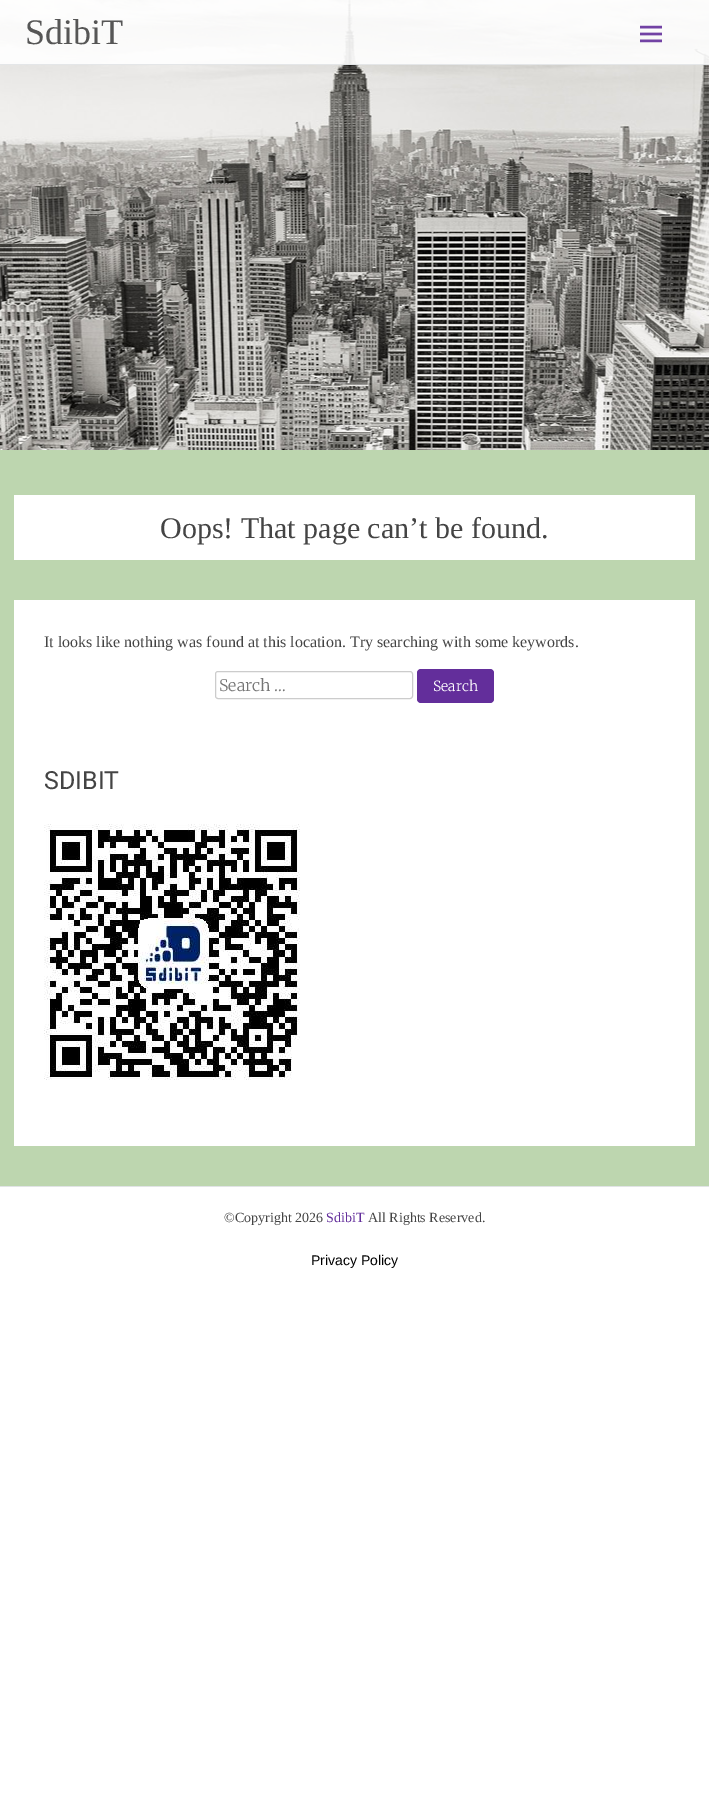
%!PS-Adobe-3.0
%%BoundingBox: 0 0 709 1805
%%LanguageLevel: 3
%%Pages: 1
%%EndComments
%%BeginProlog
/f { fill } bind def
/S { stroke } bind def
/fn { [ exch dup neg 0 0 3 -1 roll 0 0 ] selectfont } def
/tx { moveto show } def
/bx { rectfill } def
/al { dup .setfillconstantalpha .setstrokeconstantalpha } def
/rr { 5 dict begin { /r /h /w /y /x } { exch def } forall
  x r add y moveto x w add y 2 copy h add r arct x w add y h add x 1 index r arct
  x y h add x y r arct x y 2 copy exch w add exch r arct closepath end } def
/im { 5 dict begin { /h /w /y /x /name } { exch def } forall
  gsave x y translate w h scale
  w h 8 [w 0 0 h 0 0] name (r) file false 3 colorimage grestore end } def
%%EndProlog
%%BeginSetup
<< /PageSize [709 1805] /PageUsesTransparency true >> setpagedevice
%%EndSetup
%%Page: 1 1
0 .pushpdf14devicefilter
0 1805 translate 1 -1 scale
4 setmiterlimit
1 setgray
0 0 709 1805 bx
(image0.raw) 0 0 709 450 im
0.9 al
0 0 709 65 bx
0.882 0.894 0.902 setrgbcolor
0 64 709 1 bx
/LiberationSerif-Regular 36 fn
1 al
0.337 setgray
(SdibiT) 25 44 tx
(image1.raw) 640 25 22 18 im
0.741 0.839 0.686 setrgbcolor
0 450 709 736 bx
1 setgray
14 495 681 65 bx
/LiberationSerif-Regular 30 fn
0.267 setgray
(Oops! That page can’t be found.) 160 538 tx
1 setgray
14 600 681 546 bx
/LiberationSerif-Regular 16 fn
0.267 setgray
(It looks like nothing was found at this location. Try searching with some keywords.) 44 647 tx
0.8 setgray
215.5 671.5 197 27 2.5 rr S
/Merriweather-Light 16 fn
0.459 setgray
(Search …) 219 691 tx
0.388 0.18 0.608 setrgbcolor
417 669 77 34 4 rr f
/Merriweather-Light 14 fn
1 setgray
(Search) 433 691 tx
/Roboto-Regular 25 fn
0.267 setgray
(SDIBIT) 44 789 tx
(image2.raw) 44 824 256 256 im
0.882 0.894 0.902 setrgbcolor
0 1186 709 1 bx
/LiberationSerif-Regular 14 fn
0.267 setgray
(©Copyright 2026) 224 1222 tx
0.388 0.18 0.608 setrgbcolor
(SdibiT) 326 1222 tx
0.267 setgray
(All Rights Reserved.) 368 1222 tx
/LiberationSans-Regular 14 fn
0 setgray
(Privacy Policy) 311 1265 tx
.poppdf14devicefilter showpage
%%EOF
